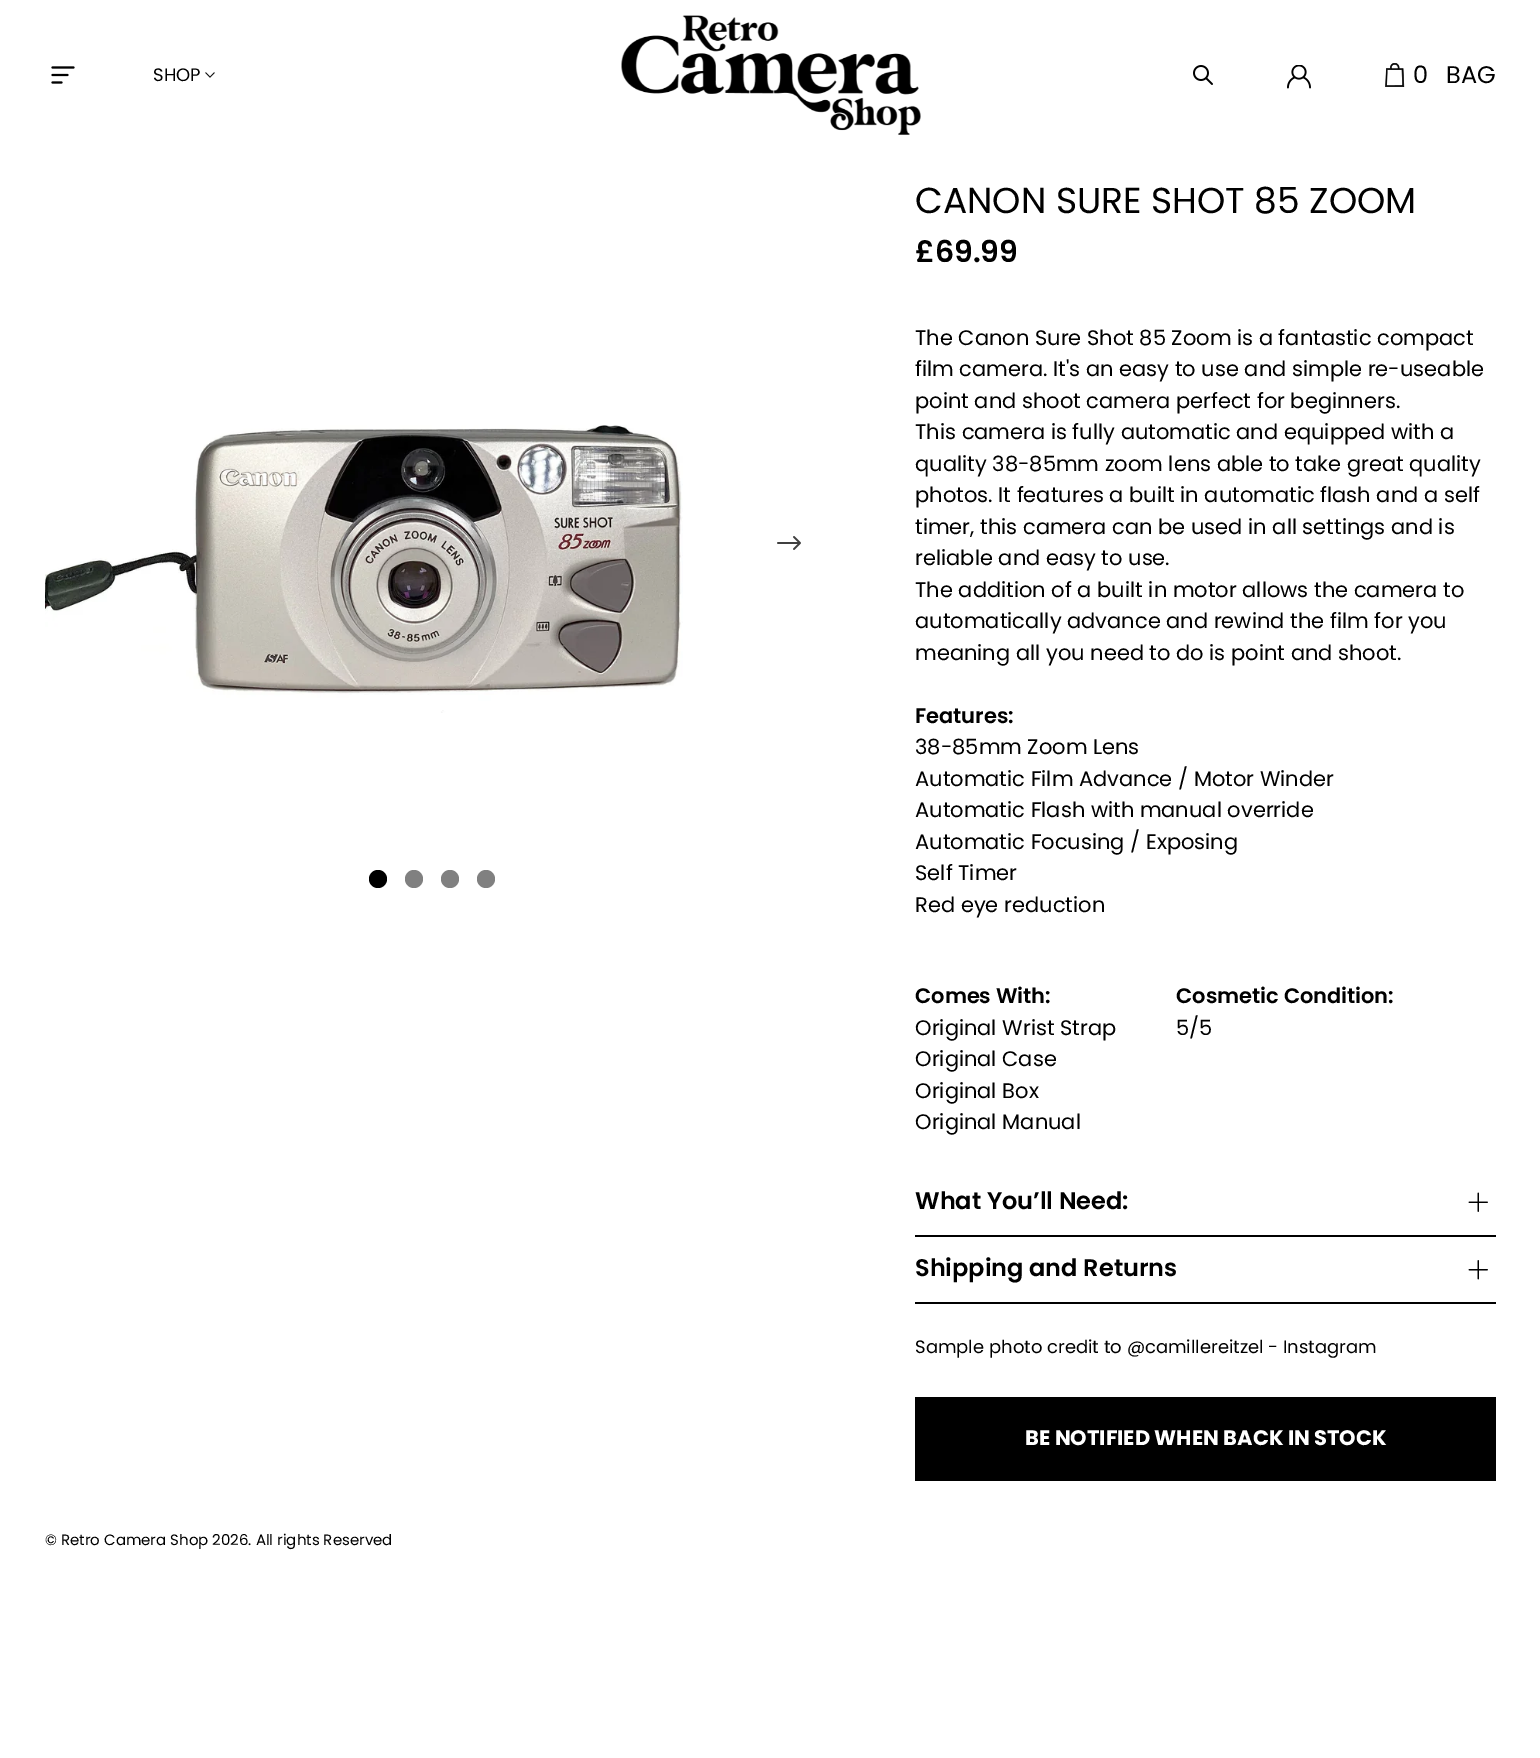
%!PS-Adobe-3.0
%%BoundingBox: 0 0 1540 1758
%%LanguageLevel: 3
%%Pages: 1
%%EndComments
%%BeginProlog
/f { fill } bind def
/fn { [ exch dup neg 0 0 3 -1 roll 0 0 ] selectfont } def
/tx { moveto show } def
/bx { rectfill } def
/ci { newpath 0 360 arc closepath } def
/im { 5 dict begin { /h /w /y /x /name } { exch def } forall
  gsave x y translate w h scale
  w h 8 [w 0 0 h 0 0] name (r) file false 3 colorimage grestore end } def
%%EndProlog
%%BeginSetup
<< /PageSize [1540 1758] >> setpagedevice
%%EndSetup
%%Page: 1 1
0 1758 translate 1 -1 scale
4 setmiterlimit
1 setgray
0 0 1540 1758 bx
(image0.raw) 51 66 24 18 im
/Poppins-Regular 18 fn
0 setgray
(SHOP) 153 81 tx
(image1.raw) 205 72 10 6 im
(image2.raw) 621 15 300 120 im
(image3.raw) 1193 65 20 20 im
(image4.raw) 1287 65 24 24 im
(image5.raw) 1385 63 20 24 im
/Poppins-Regular 24 fn
(0) 1413 83 tx
(BAG) 1446 83 tx
(image6.raw) 45 425 638 288 im
(image7.raw) 777 536 24 14 im
378 879 9 ci f
0.502 setgray
414 879 9 ci f
450 879 9 ci f
486 879 9 ci f
/Poppins-Regular 36 fn
0 setgray
(CANON SURE SHOT 85 ZOOM) 915 213 tx
/Poppins-SemiBold 30 fn
(£69.99) 915 262 tx
/Poppins-Regular 21 fn
(The Canon Sure Shot 85 Zoom is a fantastic compact) 915 345 tx
(film camera. It's an easy to use and simple re-useable) 915 376 tx
(point and shoot camera perfect for beginners.) 915 408 tx
(This camera is fully automatic and equipped with a) 915 439 tx
(quality 38-85mm zoom lens able to take great quality) 915 471 tx
(photos. It features a built in automatic flash and a self) 915 502 tx
(timer, this camera can be used in all settings and is) 915 534 tx
(reliable and easy to use.) 915 565 tx
(The addition of a built in motor allows the camera to) 915 597 tx
(automatically advance and rewind the film for you) 915 628 tx
(meaning all you need to do is point and shoot.) 915 660 tx
/Poppins-SemiBold 21 fn
(Features:) 915 723 tx
/Poppins-Regular 21 fn
(38-85mm Zoom Lens) 915 754 tx
(Automatic Film Advance / Motor Winder) 915 786 tx
(Automatic Flash with manual override) 915 817 tx
(Automatic Focusing / Exposing) 915 849 tx
(Self Timer) 915 880 tx
(Red eye reduction) 915 912 tx
/Poppins-SemiBold 21 fn
(Comes With:) 915 1003 tx
/Poppins-Regular 21 fn
(Original Wrist Strap) 915 1035 tx
(Original Case) 915 1066 tx
(Original Box) 915 1098 tx
(Original Manual) 915 1129 tx
/Poppins-SemiBold 21 fn
(Cosmetic Condition:) 1176 1003 tx
/Poppins-Regular 21 fn
(5/5) 1176 1035 tx
915 1235 581 2 bx
/Poppins-SemiBold 24 fn
(What You’ll Need:) 915 1209 tx
(image8.raw) 1468 1192 20 20 im
915 1302 581 2 bx
(Shipping and Returns) 915 1276 tx
(image9.raw) 1468 1260 20 20 im
/Poppins-Regular 18 fn
(Sample photo credit to @camillereitzel - Instagram) 915 1353 tx
915 1397 581 84 bx
/Poppins-Bold 21 fn
1 setgray
(BE NOTIFIED WHEN BACK IN STOCK) 1025 1445 tx
/Poppins-Regular 15 fn
0 setgray
(© Retro Camera Shop 2026. All rights Reserved) 45 1545 tx
showpage
%%EOF
